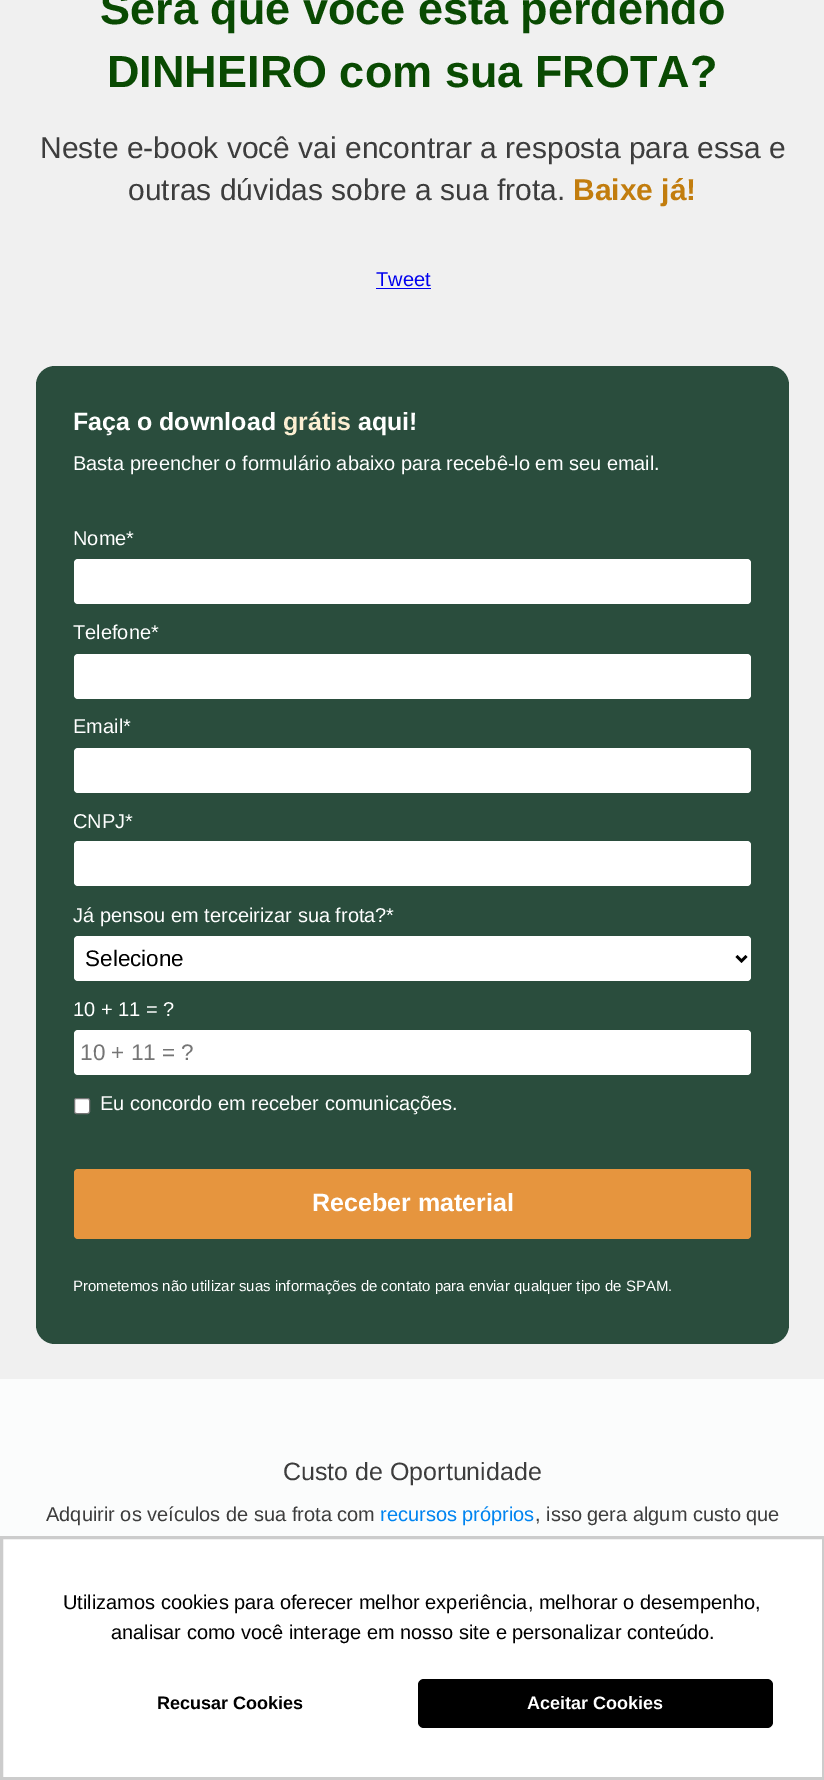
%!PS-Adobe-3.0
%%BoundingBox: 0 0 824 1780
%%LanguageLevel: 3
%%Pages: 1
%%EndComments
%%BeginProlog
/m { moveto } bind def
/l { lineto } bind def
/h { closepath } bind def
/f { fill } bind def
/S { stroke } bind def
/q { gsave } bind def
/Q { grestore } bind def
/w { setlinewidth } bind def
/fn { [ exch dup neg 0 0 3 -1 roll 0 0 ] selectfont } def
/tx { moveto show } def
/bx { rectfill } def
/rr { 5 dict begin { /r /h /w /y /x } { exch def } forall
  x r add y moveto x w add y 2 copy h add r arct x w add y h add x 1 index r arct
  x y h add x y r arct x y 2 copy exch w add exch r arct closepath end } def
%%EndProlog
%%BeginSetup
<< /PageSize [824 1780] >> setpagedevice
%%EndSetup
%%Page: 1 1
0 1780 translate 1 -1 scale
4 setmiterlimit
0.984 0.988 0.988 setrgbcolor
0 0 824 1780 bx
0.941 setgray
0 0 824 1379 bx
/LiberationSans-Bold 45 fn
0.035 0.29 0.008 setrgbcolor
(Será que você está perdendo) 100 24 tx
(DINHEIRO com sua FROTA?) 107 87 tx
/LiberationSans-Regular 30 fn
0.239 setgray
(Neste e-book você vai encontrar a resposta para essa e) 40 158 tx
(outras dúvidas sobre a sua frota.) 128 200 tx
/LiberationSans-Bold 30 fn
0.761 0.49 0.055 setrgbcolor
(Baixe já!) 573 200 tx
/LiberationSans-Regular 20 fn
0 0 0.933 setrgbcolor
(Tweet) 376 286 tx
376 288 55 1 bx
0.165 0.302 0.239 setrgbcolor
36 366 753 978 19 rr f
/LiberationSans-Bold 25 fn
1 setgray
(Faça o download) 73 430 tx
0.988 0.937 0.824 setrgbcolor
(grátis) 283 430 tx
1 setgray
(aqui!) 358 430 tx
/LiberationSans-Regular 20 fn
(Basta preencher o formulário abaixo para recebê-lo em seu email.) 73 470 tx
(Nome*) 73 545 tx
74 559 677 45 4 rr f
(Telefone*) 73 639 tx
74 654 677 45 4 rr f
(Email*) 73 733 tx
74 748 677 45 4 rr f
(CNPJ*) 73 828 tx
74 841 677 45 4 rr f
(Já pensou em terceirizar sua frota?*) 73 922 tx
74 936 677 45 4 rr f
0 setgray
2.5 w
736.5 956 m 741.5 961 l 746.5 956 l S
/LiberationSans-Regular 22.5 fn
(Selecione) 85 966 tx
/LiberationSans-Regular 20 fn
1 setgray
(10 + 11 = ?) 73 1016 tx
74 1030 677 45 4 rr f
/LiberationSans-Regular 22.5 fn
0.459 setgray
(10 + 11 = ?) 80 1060 tx
1 setgray
74.5 1098.5 15 15 2 rr q f Q
0.463 setgray
1 w
S
/LiberationSans-Regular 20 fn
1 setgray
(Eu concordo em receber comunicações.) 100 1110 tx
0.902 0.584 0.243 setrgbcolor
74 1169 677 70 4 rr f
/LiberationSans-Bold 25 fn
1 setgray
(Receber material) 312 1211 tx
/LiberationSans-Regular 15 fn
(Prometemos não utilizar suas informações de contato para enviar qualquer tipo de SPAM.) 73 1291 tx
/LiberationSans-Regular 25 fn
0.239 setgray
(Custo de Oportunidade) 283 1480 tx
/LiberationSans-Regular 20 fn
(Adquirir os veículos de sua frota com) 46 1521 tx
0 0.518 0.941 setrgbcolor
(recursos próprios) 380 1521 tx
0.239 setgray
(, isso gera algum custo que) 535 1521 tx
1 setgray
1.5 1537.5 m 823.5 1537.5 l 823.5 1778.5 l 1.5 1778.5 l h q f Q
0.8 setgray
3 w
S
0 setgray
(Utilizamos cookies para oferecer melhor experiência, melhorar o desempenho,) 63 1609 tx
(analisar como você interage em nosso site e personalizar conteúdo.) 111 1639 tx
/LiberationSans-Bold 18 fn
(Recusar Cookies) 157 1709 tx
418 1679 355 49 6 rr f
1 setgray
(Aceitar Cookies) 527 1709 tx
showpage
%%EOF
